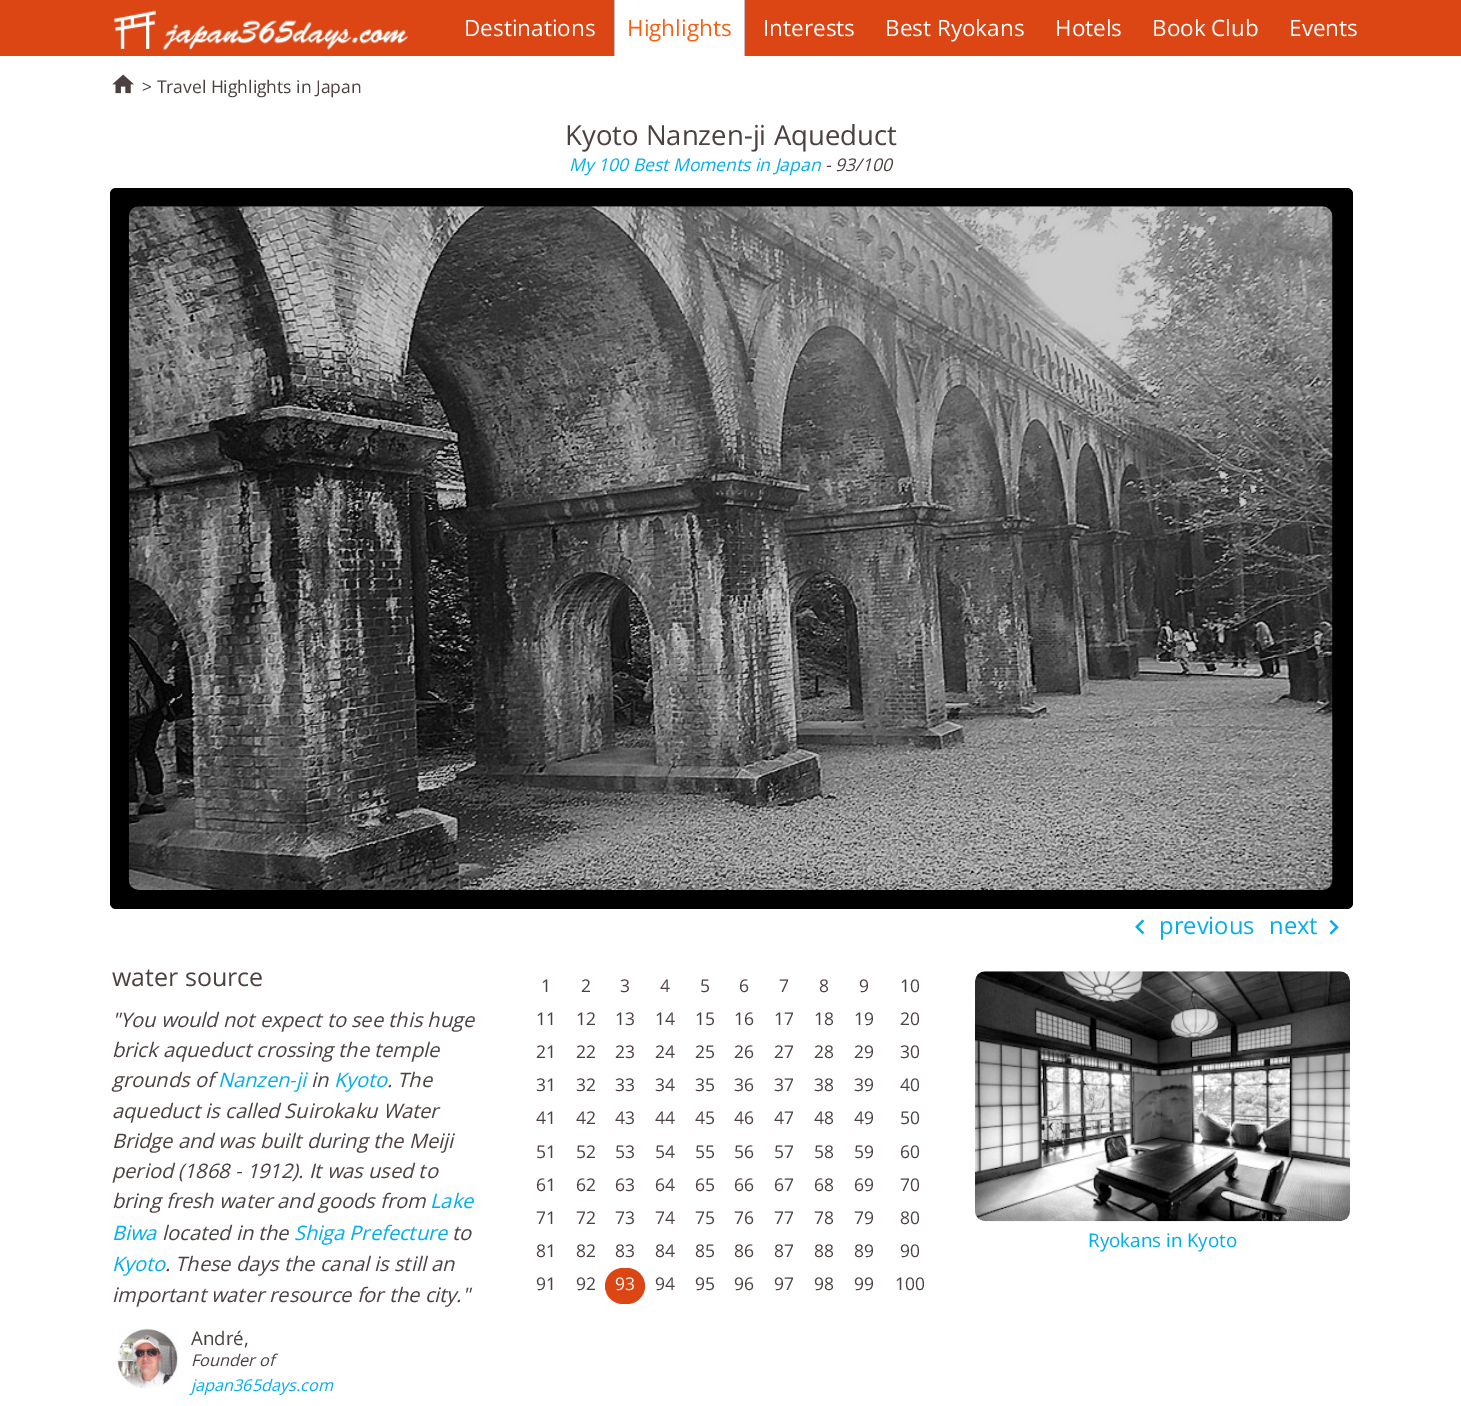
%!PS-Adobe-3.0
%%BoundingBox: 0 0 1461 1406
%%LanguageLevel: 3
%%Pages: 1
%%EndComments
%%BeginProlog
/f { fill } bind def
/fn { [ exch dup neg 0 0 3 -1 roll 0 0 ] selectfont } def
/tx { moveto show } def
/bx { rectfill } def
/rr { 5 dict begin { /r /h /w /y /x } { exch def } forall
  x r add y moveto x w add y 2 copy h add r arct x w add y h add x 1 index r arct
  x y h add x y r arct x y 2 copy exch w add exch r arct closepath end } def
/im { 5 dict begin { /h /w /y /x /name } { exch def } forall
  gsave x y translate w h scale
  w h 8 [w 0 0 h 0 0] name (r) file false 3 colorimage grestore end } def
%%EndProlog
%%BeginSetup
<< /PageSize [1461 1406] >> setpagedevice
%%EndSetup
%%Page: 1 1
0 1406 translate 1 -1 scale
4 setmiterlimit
1 setgray
0 0 1461 1406 bx
0.863 0.275 0.078 setrgbcolor
0 0 1461 56 bx
(image0.raw) 114 10 294 41 im
/OpenSans-Regular 22.5 fn
1 setgray
(Destinations) 464 36 tx
615 0 129 56 bx
0.796 0.733 0.733 setrgbcolor
744 0 1 56 bx
614 0 1 56 bx
0.973 0.373 0.075 setrgbcolor
(Highlights) 627 36 tx
1 setgray
(Interests) 763 36 tx
(Best Ryokans) 885 36 tx
(Hotels) 1055 36 tx
(Book Club) 1152 36 tx
(Events) 1289 36 tx
(image1.raw) 112 74 22 20 im
/OpenSans-Regular 17.5 fn
0.298 0.251 0.251 setrgbcolor
(> Travel Highlights in Japan) 142 93 tx
/OpenSans-Regular 27.5 fn
(Kyoto Nanzen-ji Aqueduct) 565 145 tx
/OpenSans-Italic 17.5 fn
0.008 0.678 0.929 setrgbcolor
(My 100 Best Moments in Japan) 569 171 tx
0.298 0.251 0.251 setrgbcolor
(- 93/100) 825 171 tx
0 setgray
110 188 1243 721 6 rr f
(image2.raw) 128 206 1205 684 im
(image3.raw) 1135 919 10 16 im
/OpenSans-Regular 23.75 fn
0.008 0.678 0.929 setrgbcolor
(previous) 1159 934 tx
(next) 1269 934 tx
(image4.raw) 1329 919 10 16 im
/OpenSans-Regular 25 fn
0.298 0.251 0.251 setrgbcolor
(water source) 112 986 tx
/OpenSans-Italic 20 fn
("You would not expect to see this huge) 112 1027 tx
(brick aqueduct crossing the temple) 112 1057 tx
(grounds of) 112 1087 tx
0.008 0.678 0.929 setrgbcolor
(Nanzen-ji) 218 1087 tx
0.298 0.251 0.251 setrgbcolor
(in) 311 1087 tx
0.008 0.678 0.929 setrgbcolor
(Kyoto) 334 1087 tx
0.298 0.251 0.251 setrgbcolor
(. The) 387 1087 tx
(aqueduct is called Suirokaku Water) 112 1118 tx
(Bridge and was built during the Meiji) 112 1148 tx
(period \(1868 - 1912\). It was used to) 112 1178 tx
(bring fresh water and goods from) 112 1208 tx
0.008 0.678 0.929 setrgbcolor
(Lake) 430 1208 tx
(Biwa) 112 1240 tx
0.298 0.251 0.251 setrgbcolor
(located in the) 162 1240 tx
0.008 0.678 0.929 setrgbcolor
(Shiga Prefecture) 294 1240 tx
0.298 0.251 0.251 setrgbcolor
(to) 452 1240 tx
0.008 0.678 0.929 setrgbcolor
(Kyoto) 112 1271 tx
0.298 0.251 0.251 setrgbcolor
(. These days the canal is still an) 165 1271 tx
(important water resource for the city.") 112 1302 tx
(image5.raw) 117 1328 61 61 im
/OpenSans-Regular 18.75 fn
(André,) 191 1345 tx
/OpenSans-Italic 16.25 fn
(Founder of) 191 1366 tx
0.008 0.678 0.929 setrgbcolor
(japan365days.com) 191 1391 tx
/OpenSans-Regular 17.5 fn
0.298 0.251 0.251 setrgbcolor
(1) 541 992 tx
(2) 581 992 tx
(3) 620 992 tx
(4) 660 992 tx
(5) 700 992 tx
(6) 739 992 tx
(7) 779 992 tx
(8) 819 992 tx
(9) 859 992 tx
(10) 900 992 tx
(11) 536 1025 tx
(12) 576 1025 tx
(13) 615 1025 tx
(14) 655 1025 tx
(15) 695 1025 tx
(16) 734 1025 tx
(17) 774 1025 tx
(18) 814 1025 tx
(19) 854 1025 tx
(20) 900 1025 tx
(21) 536 1058 tx
(22) 576 1058 tx
(23) 615 1058 tx
(24) 655 1058 tx
(25) 695 1058 tx
(26) 734 1058 tx
(27) 774 1058 tx
(28) 814 1058 tx
(29) 854 1058 tx
(30) 900 1058 tx
(31) 536 1091 tx
(32) 576 1091 tx
(33) 615 1091 tx
(34) 655 1091 tx
(35) 695 1091 tx
(36) 734 1091 tx
(37) 774 1091 tx
(38) 814 1091 tx
(39) 854 1091 tx
(40) 900 1091 tx
(41) 536 1124 tx
(42) 576 1124 tx
(43) 615 1124 tx
(44) 655 1124 tx
(45) 695 1124 tx
(46) 734 1124 tx
(47) 774 1124 tx
(48) 814 1124 tx
(49) 854 1124 tx
(50) 900 1124 tx
(51) 536 1158 tx
(52) 576 1158 tx
(53) 615 1158 tx
(54) 655 1158 tx
(55) 695 1158 tx
(56) 734 1158 tx
(57) 774 1158 tx
(58) 814 1158 tx
(59) 854 1158 tx
(60) 900 1158 tx
(61) 536 1191 tx
(62) 576 1191 tx
(63) 615 1191 tx
(64) 655 1191 tx
(65) 695 1191 tx
(66) 734 1191 tx
(67) 774 1191 tx
(68) 814 1191 tx
(69) 854 1191 tx
(70) 900 1191 tx
(71) 536 1224 tx
(72) 576 1224 tx
(73) 615 1224 tx
(74) 655 1224 tx
(75) 695 1224 tx
(76) 734 1224 tx
(77) 774 1224 tx
(78) 814 1224 tx
(79) 854 1224 tx
(80) 900 1224 tx
(81) 536 1257 tx
(82) 576 1257 tx
(83) 615 1257 tx
(84) 655 1257 tx
(85) 695 1257 tx
(86) 734 1257 tx
(87) 774 1257 tx
(88) 814 1257 tx
(89) 854 1257 tx
(90) 900 1257 tx
(91) 536 1290 tx
(92) 576 1290 tx
0.863 0.275 0.078 setrgbcolor
605 1268 40 36 18 rr f
1 setgray
(93) 615 1290 tx
0.298 0.251 0.251 setrgbcolor
(94) 655 1290 tx
(95) 695 1290 tx
(96) 734 1290 tx
(97) 774 1290 tx
(98) 814 1290 tx
(99) 854 1290 tx
(100) 895 1290 tx
(image6.raw) 975 971 375 251 im
/OpenSans-Regular 18.75 fn
0.008 0.678 0.929 setrgbcolor
(Ryokans in Kyoto) 1088 1247 tx
showpage
%%EOF
